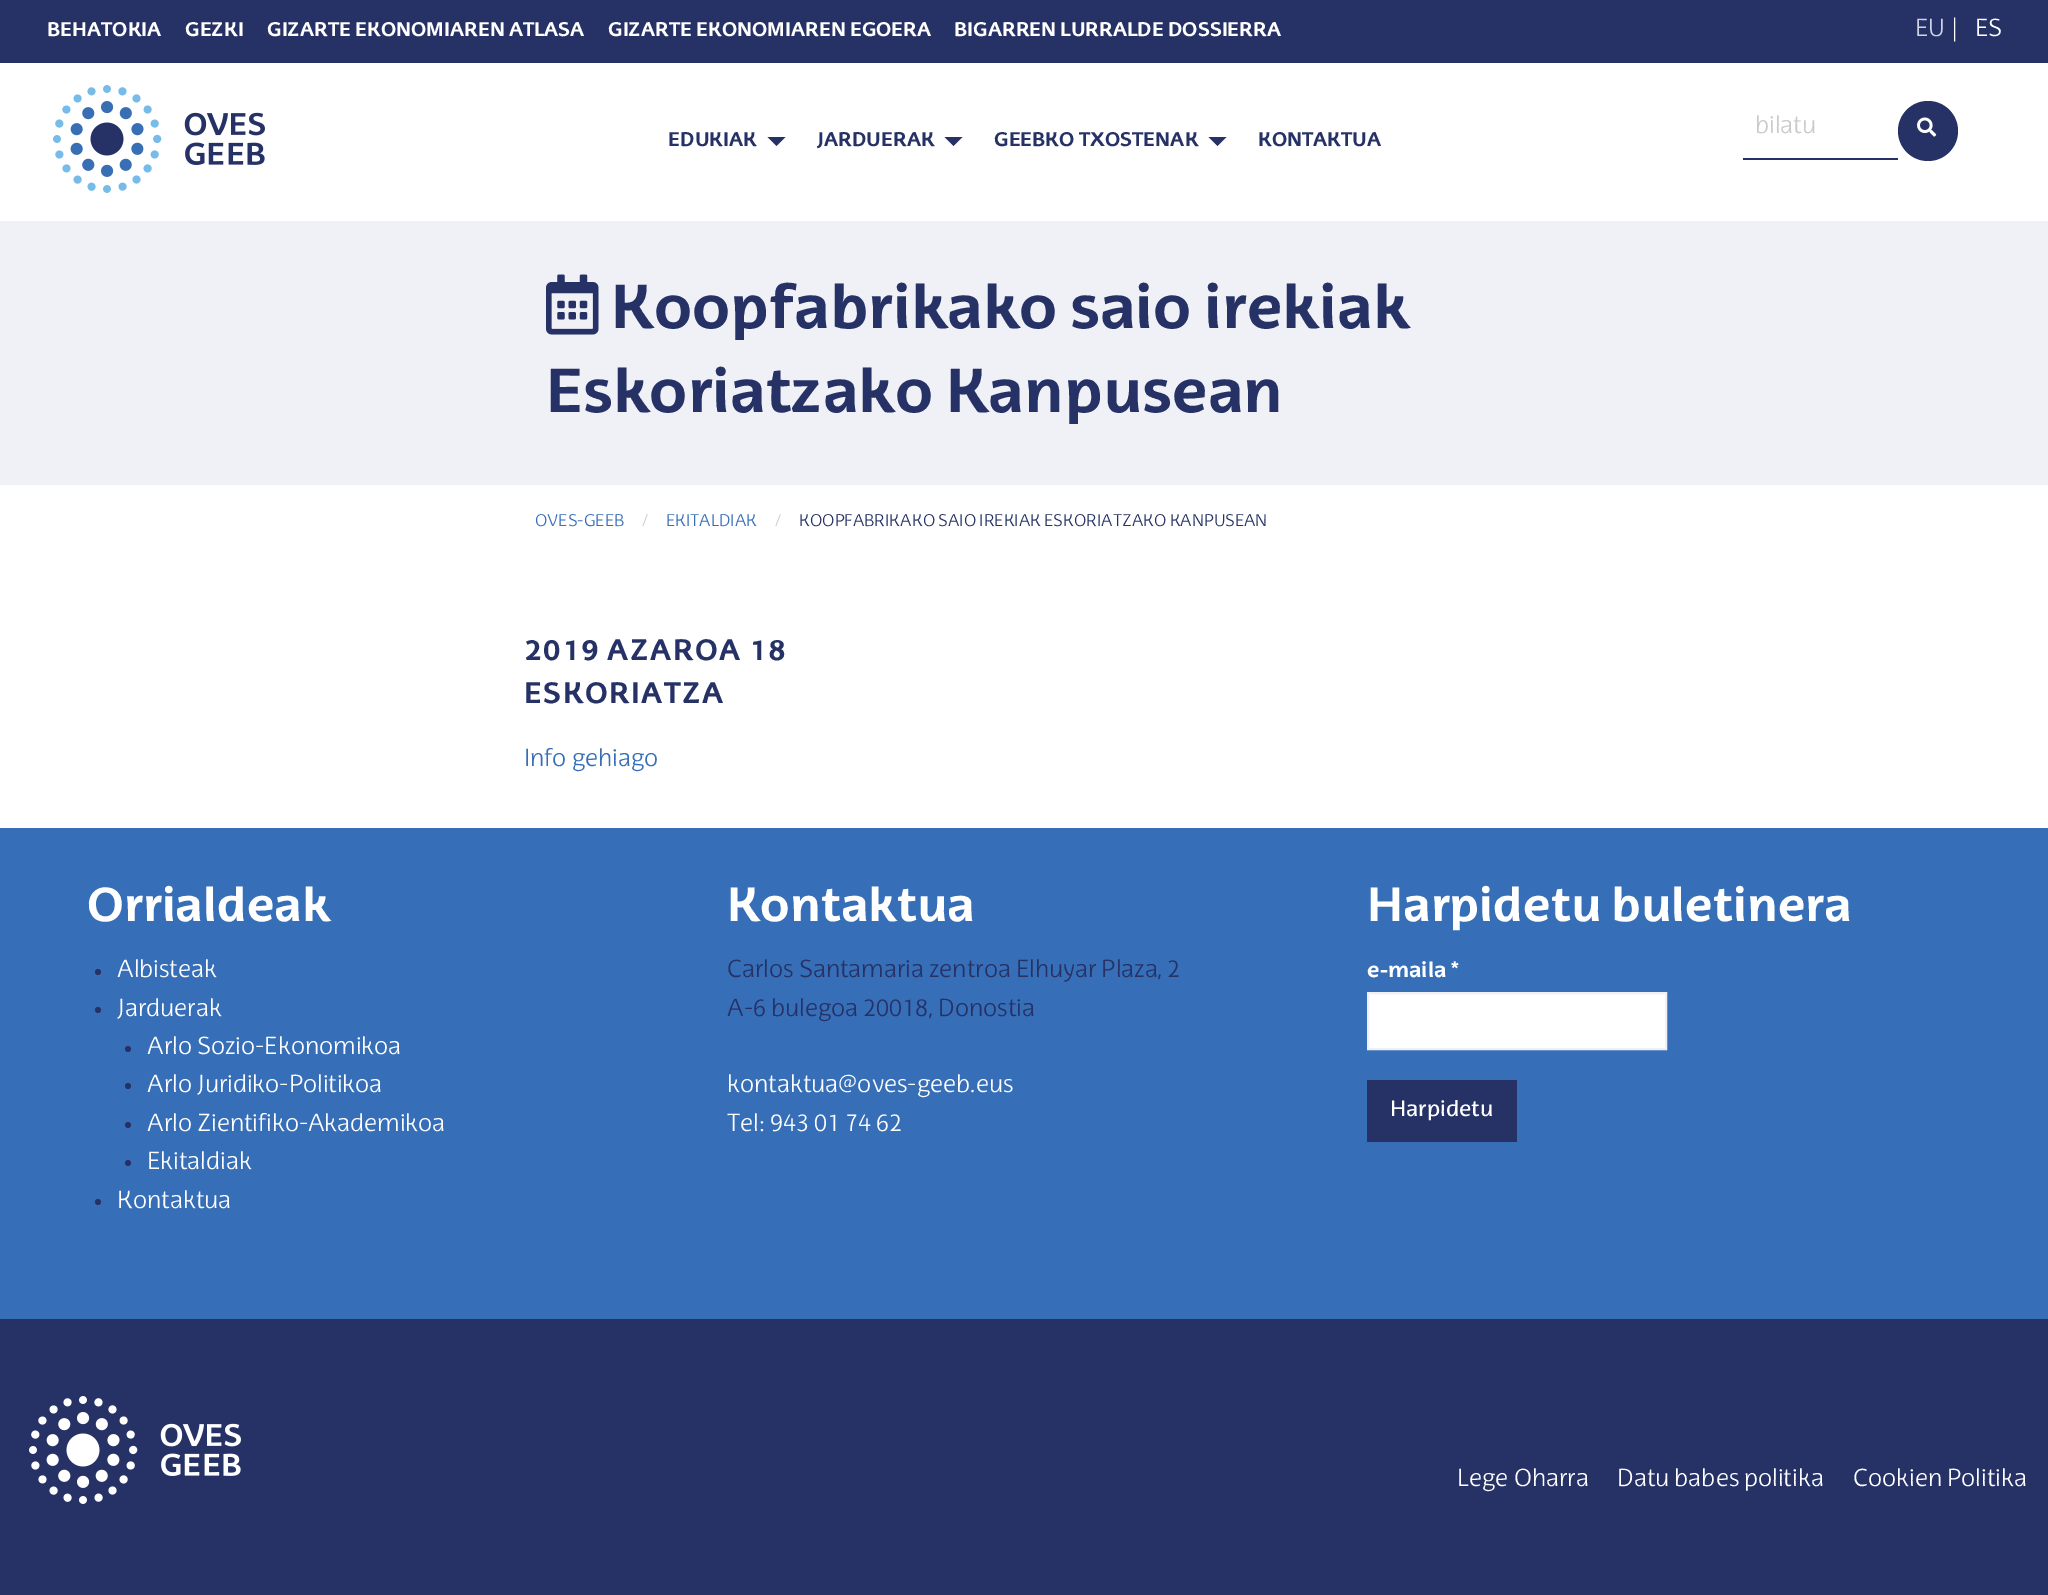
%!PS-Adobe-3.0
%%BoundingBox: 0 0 2048 1595
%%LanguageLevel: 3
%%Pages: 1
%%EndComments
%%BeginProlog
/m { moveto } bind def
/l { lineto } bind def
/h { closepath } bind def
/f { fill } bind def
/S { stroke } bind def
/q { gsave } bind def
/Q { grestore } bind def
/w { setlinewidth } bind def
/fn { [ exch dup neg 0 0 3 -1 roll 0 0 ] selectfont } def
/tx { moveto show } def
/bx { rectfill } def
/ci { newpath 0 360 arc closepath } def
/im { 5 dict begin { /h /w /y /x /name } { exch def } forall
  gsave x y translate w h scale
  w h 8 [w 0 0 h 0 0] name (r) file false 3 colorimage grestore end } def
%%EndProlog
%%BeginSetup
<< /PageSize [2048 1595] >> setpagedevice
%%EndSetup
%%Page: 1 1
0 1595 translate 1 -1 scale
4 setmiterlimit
1 setgray
0 0 2048 1595 bx
0.149 0.196 0.4 setrgbcolor
0 0 2048 63 bx
/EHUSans-Bold 19.25 fn
1 setgray
(BEHATOKIA) 47 36 tx
(GEZKI) 185 36 tx
(GIZARTE EKONOMIAREN ATLASA) 267 36 tx
(GIZARTE EKONOMIAREN EGOERA) 608 36 tx
(BIGARREN LURRALDE DOSSIERRA) 954 36 tx
/EHUSans-Light 24 fn
0.816 0.827 0.89 setrgbcolor
(EU) 1915 36 tx
1 setgray
(|) 1951 36 tx
(ES) 1975 36 tx
(image0.raw) 53 85 212 108 im
0.149 0.196 0.4 setrgbcolor
1743 158 155 2 bx
0.792 setgray
(bilatu) 1755 133 tx
0.149 0.196 0.4 setrgbcolor
1928 131 30 ci f
(image1.raw) 1917 117 20 20 im
/EHUSans-Bold 19.25 fn
(EDUKIAK) 668 146 tx
767.5 137 m 785.5 137 l 776.5 146 l h f
(JARDUERAK) 817 146 tx
944.5 137 m 962.5 137 l 953.5 146 l h f
(GEEBKO TXOSTENAK) 994 146 tx
1208.5 137 m 1226.5 137 l 1217.5 146 l h f
(KONTAKTUA) 1258 146 tx
0.941 0.945 0.965 setrgbcolor
0 221 2048 264 bx
(image2.raw) 546 274 53 61 im
/EHUSans-Bold 60 fn
0.149 0.196 0.4 setrgbcolor
(Koopfabrikako saio irekiak) 611 328 tx
(Eskoriatzako Kanpusean) 546 412 tx
/EHUSans-Light 16.5 fn
0.212 0.431 0.722 setrgbcolor
(OVES-GEEB) 535 526 tx
0.792 setgray
(/) 642 526 tx
0.212 0.431 0.722 setrgbcolor
(EKITALDIAK) 666 526 tx
0.792 setgray
(/) 775 526 tx
0.149 0.196 0.4 setrgbcolor
(KOOPFABRIKAKO SAIO IREKIAK ESKORIATZAKO KANPUSEAN) 799 526 tx
/EHUSans-Bold 28.75 fn
524 660 m 1.5 0 (2019 AZAROA 18) ashow
524 703 m 1.5 0 (ESKORIATZA) ashow
/EHUSans-Light 24 fn
0.212 0.431 0.722 setrgbcolor
(Info gehiago) 524 766 tx
0 828 2048 491 bx
/EHUSans-Bold 46.5 fn
1 setgray
(Orrialdeak) 87 921 tx
0.149 0.196 0.4 setrgbcolor
98 972 3 ci f
/EHUSans-Light 24 fn
1 setgray
(Albisteak) 117 977 tx
0.149 0.196 0.4 setrgbcolor
98 1010 3 ci f
1 setgray
(Jarduerak) 117 1016 tx
0.149 0.196 0.4 setrgbcolor
128 1049 3 ci f
1 setgray
(Arlo Sozio-Ekonomikoa) 147 1054 tx
0.149 0.196 0.4 setrgbcolor
128 1086 3 ci f
1 setgray
(Arlo Juridiko-Politikoa) 147 1092 tx
0.149 0.196 0.4 setrgbcolor
128 1125 3 ci f
1 setgray
(Arlo Zientifiko-Akademikoa) 147 1131 tx
0.149 0.196 0.4 setrgbcolor
128 1163 3 ci f
1 setgray
(Ekitaldiak) 147 1169 tx
0.149 0.196 0.4 setrgbcolor
98 1202 3 ci f
1 setgray
(Kontaktua) 117 1208 tx
/EHUSans-Bold 46.5 fn
(Kontaktua) 727 921 tx
/EHUSans-Light 24 fn
0.149 0.196 0.4 setrgbcolor
(Carlos Santamaria zentroa Elhuyar Plaza, 2) 727 977 tx
(A-6 bulegoa 20018, Donostia) 727 1016 tx
1 setgray
(kontaktua@oves-geeb.eus) 727 1092 tx
(Tel: 943 01 74 62) 727 1131 tx
/EHUSans-Bold 46.5 fn
(Harpidetu buletinera) 1367 921 tx
/EHUSans-Bold 21 fn
(e-maila *) 1367 977 tx
1368 993 m 1666 993 l 1666 1049 l 1368 1049 l h q f Q
0.941 0.945 0.965 setrgbcolor
2 w
S
0.149 0.196 0.4 setrgbcolor
1367 1080 150 62 bx
/EHUSans-Regular 21.5 fn
1 setgray
(Harpidetu) 1390 1116 tx
0.149 0.196 0.4 setrgbcolor
0 1319 2048 276 bx
(image3.raw) 29 1396 212 108 im
/EHUSans-Light 24 fn
1 setgray
(Lege Oharra) 1457 1486 tx
(Datu babes politika) 1617 1486 tx
(Cookien Politika) 1853 1486 tx
showpage
%%EOF
